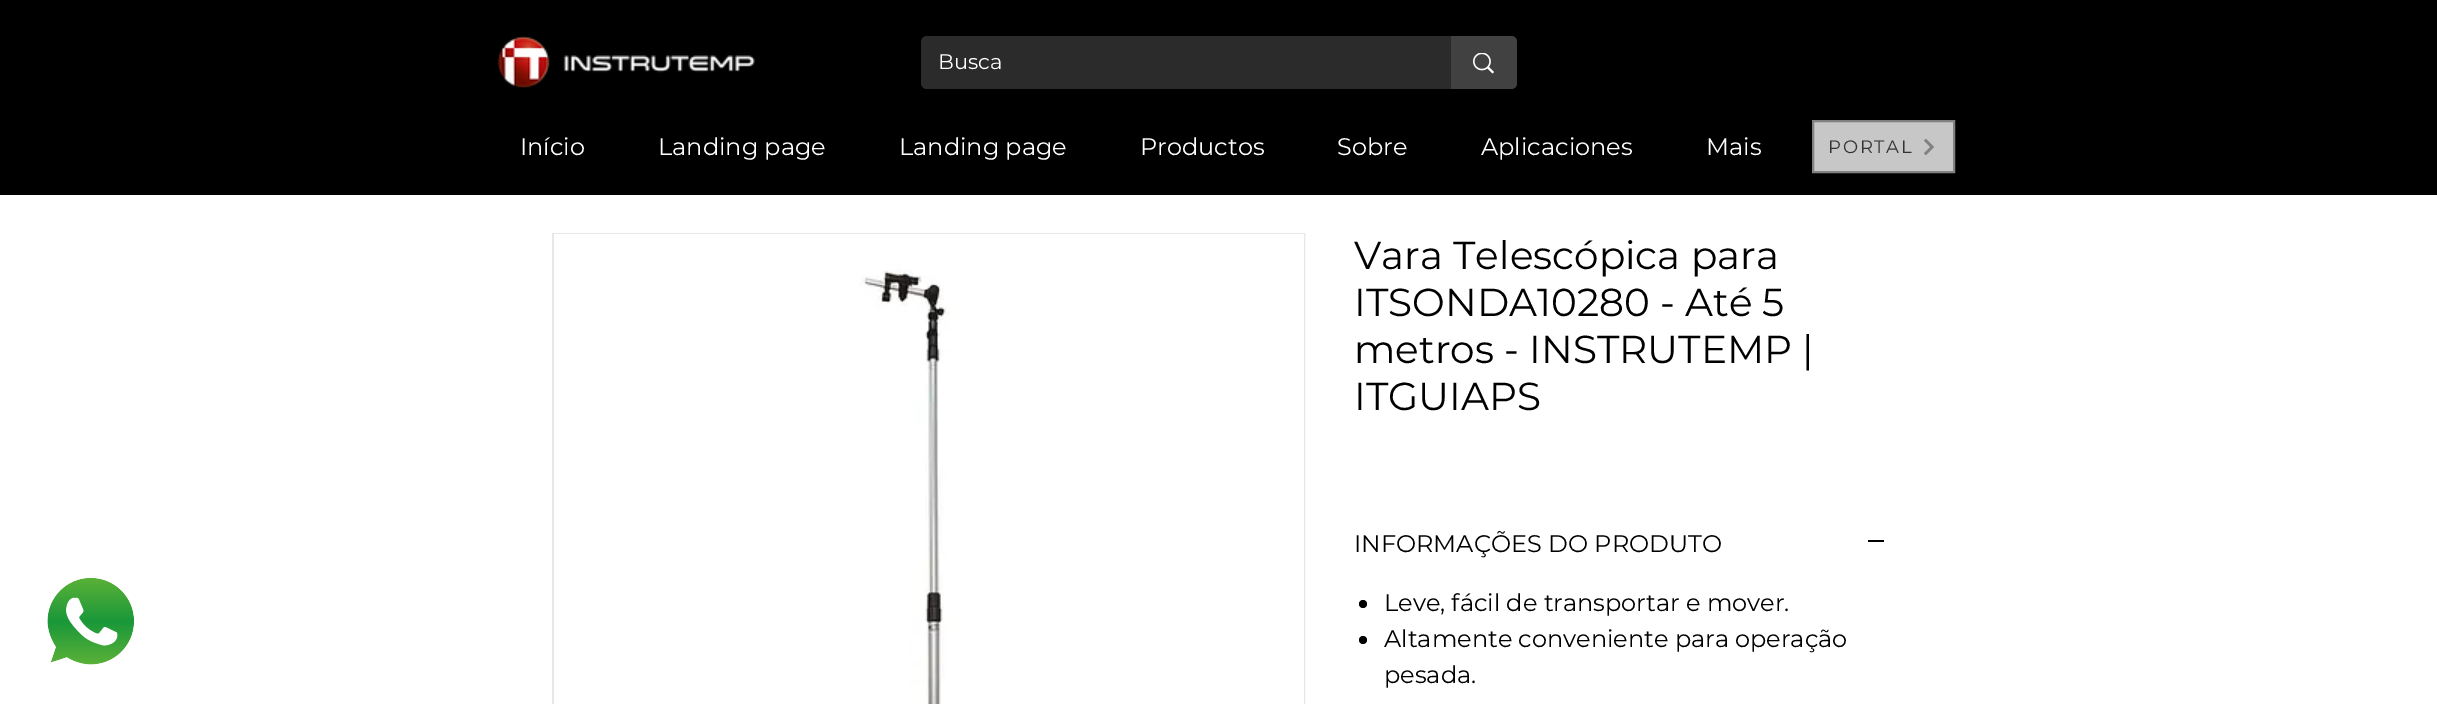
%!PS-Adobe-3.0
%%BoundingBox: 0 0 2437 704
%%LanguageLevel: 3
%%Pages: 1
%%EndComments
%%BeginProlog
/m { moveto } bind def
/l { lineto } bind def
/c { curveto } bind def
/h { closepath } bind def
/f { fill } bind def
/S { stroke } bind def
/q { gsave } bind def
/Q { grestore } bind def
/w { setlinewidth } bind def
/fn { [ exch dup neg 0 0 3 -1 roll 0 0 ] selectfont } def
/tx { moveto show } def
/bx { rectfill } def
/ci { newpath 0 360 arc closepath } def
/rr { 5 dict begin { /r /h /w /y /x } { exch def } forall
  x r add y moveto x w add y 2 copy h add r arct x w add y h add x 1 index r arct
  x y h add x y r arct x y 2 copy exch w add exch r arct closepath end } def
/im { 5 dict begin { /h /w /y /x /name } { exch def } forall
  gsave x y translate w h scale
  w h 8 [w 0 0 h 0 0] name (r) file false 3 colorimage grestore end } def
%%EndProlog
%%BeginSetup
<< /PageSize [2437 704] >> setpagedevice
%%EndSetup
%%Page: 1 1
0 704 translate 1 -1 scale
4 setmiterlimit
1 setgray
0 0 2437 704 bx
0 setgray
0 0 2437 195 bx
(image0.raw) 497 36 258 53 im
0.169 setgray
921 36 596 53 6 rr f
/Montserrat-Regular 21 fn
1 setgray
(Busca) 938 69 tx
0.255 setgray
1451 36 m 1511 36 l 1514.5 36 1517 38.5 1517 42 c 1517 83 l 1517 86.5 1514.5 89 1511 89 c 1451 89 l h f
(image1.raw) 1473 53 21 21 im
/Montserrat-Regular 24 fn
1 setgray
(Início) 520 155 tx
(Landing page) 658 155 tx
(Landing page) 899 155 tx
(Productos) 1140 155 tx
(Sobre) 1337 155 tx
(Aplicaciones) 1481 155 tx
(Mais) 1706 155 tx
0.78 setgray
1813 121 m 1954 121 l 1954 172 l 1813 172 l h q f Q
0.506 0.506 0.502 setrgbcolor
2 w
S
/Montserrat-Regular 18 fn
0.2 setgray
1828 153 m 1.75 0 (PORTAL) ashow
(image2.raw) 1924 138 10 18 im
(image3.raw) 47 577 87 88 im
0.91 0.902 0.902 setrgbcolor
553 234 751 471 rectstroke
(image4.raw) 554 234 750 470 im
/Montserrat-Regular 39 fn
0 setgray
(Vara Telescópica para) 1354 269 tx
(ITSONDA10280 - Até 5) 1354 316 tx
(metros - INSTRUTEMP |) 1354 363 tx
(ITGUIAPS) 1354 410 tx
/Montserrat-Regular 24 fn
(INFORMAÇÕES DO PRODUTO) 1354 552 tx
1868 540 16 2 bx
1363 604 4 ci f
(Leve, fácil de transportar e mover.) 1384 611 tx
1363 640 4 ci f
(Altamente conveniente para operação) 1384 647 tx
(pesada.) 1384 683 tx
showpage
%%EOF
